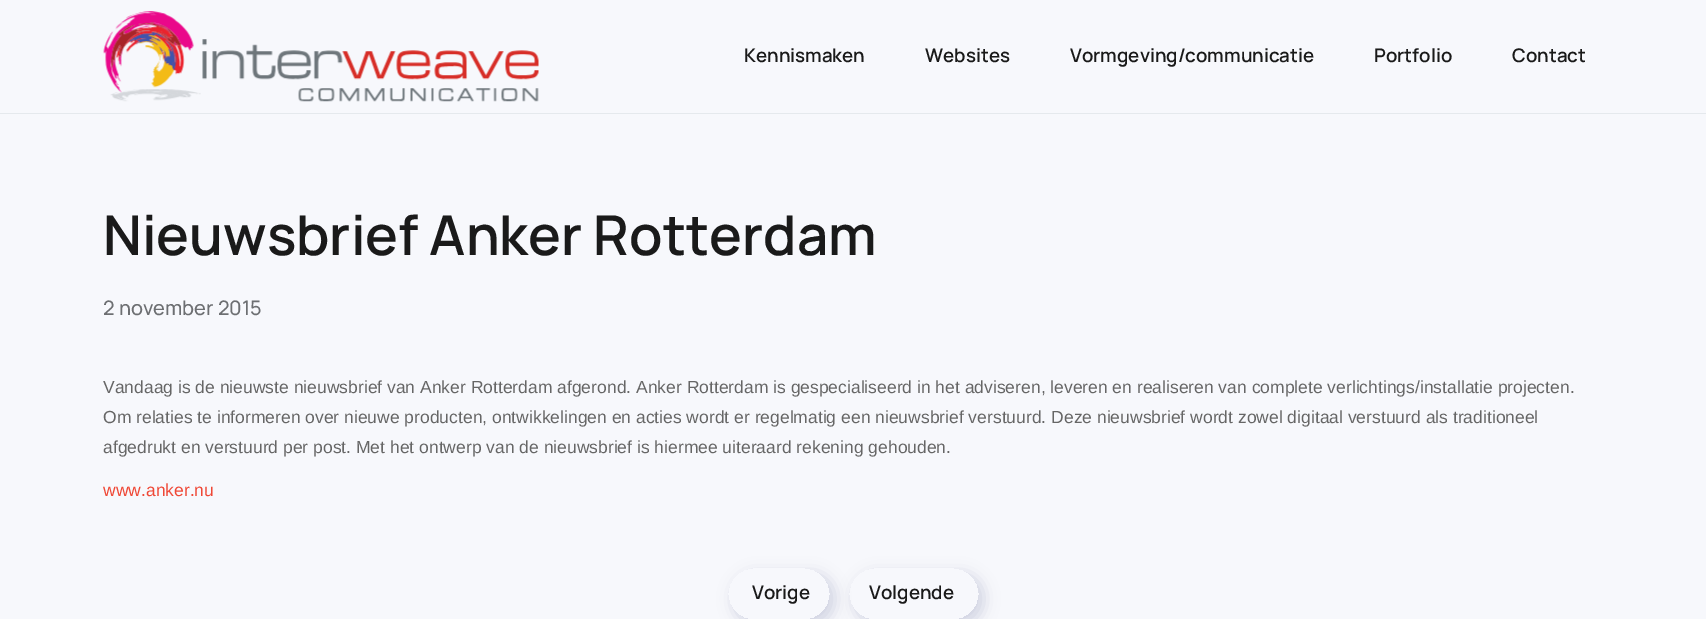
%!PS-Adobe-3.0
%%BoundingBox: 0 0 1706 619
%%LanguageLevel: 3
%%Pages: 1
%%EndComments
%%BeginProlog
/m { moveto } bind def
/l { lineto } bind def
/c { curveto } bind def
/h { closepath } bind def
/q { gsave } bind def
/Q { grestore } bind def
/fn { [ exch dup neg 0 0 3 -1 roll 0 0 ] selectfont } def
/tx { moveto show } def
/bx { rectfill } def
/al { dup .setfillconstantalpha .setstrokeconstantalpha } def
/rr { 5 dict begin { /r /h /w /y /x } { exch def } forall
  x r add y moveto x w add y 2 copy h add r arct x w add y h add x 1 index r arct
  x y h add x y r arct x y 2 copy exch w add exch r arct closepath end } def
/sh { 12 dict begin { /a /b /q /h /w /y /x } { exch def } forall gsave /was 0 def
  9 -2 -9 { dup b mul 4 div /e exch def 1 sub .425 mul 2.718 exch exp 1 add a .99 .min exch div /now exch def
    1 1 now sub 1 was sub div sub al /was now def
    w h .min e 2 mul add 0 gt { x e sub y e sub w e 2 mul add h e 2 mul add
      q e add b .6 mul add w h .min 2 div e add .min 0 .max rr fill } if } for grestore end } def
/im { 5 dict begin { /h /w /y /x /name } { exch def } forall
  gsave x y translate w h scale
  w h 8 [w 0 0 h 0 0] name (r) file false 3 colorimage grestore end } def
%%EndProlog
%%BeginSetup
<< /PageSize [1706 619] /PageUsesTransparency true >> setpagedevice
%%EndSetup
%%Page: 1 1
0 .pushpdf14devicefilter
0 619 translate 1 -1 scale
4 setmiterlimit
0.969 0.973 0.988 setrgbcolor
0 0 1706 619 bx
0.898 0.914 0.929 setrgbcolor
0 113 1706 1 bx
(image0.raw) 103 11 436 91 im
/Manrope-ExtraLight 18.75 fn
0.102 setgray
(Kennismaken) 744 62 tx
(Websites) 925 62 tx
(Vormgeving/communicatie) 1070 62 tx
(Portfolio) 1374 62 tx
(Contact) 1512 62 tx
/Manrope-ExtraLight 55 fn
(Nieuwsbrief Anker Rotterdam) 103 255 tx
/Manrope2-ExtraLight 20 fn
0.427 0.435 0.447 setrgbcolor
(2 november 2015) 103 315 tx
/LiberationSans-Regular 17.5 fn
0.4 setgray
(Vandaag is de nieuwste nieuwsbrief van Anker Rotterdam afgerond. Anker Rotterdam is gespecialiseerd in het adviseren, leveren en realiseren van complete verlichtings/installatie projecten.) 103 393 tx
(Om relaties te informeren over nieuwe producten, ontwikkelingen en acties wordt er regelmatig een nieuwsbrief verstuurd. Deze nieuwsbrief wordt zowel digitaal verstuurd als traditioneel) 103 423 tx
(afgedrukt en verstuurd per post. Met het ontwerp van de nieuwsbrief is hiermee uiteraard rekening gehouden.) 103 453 tx
0.937 0.282 0.212 setrgbcolor
(www.anker.nu) 103 496 tx
q
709 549 m 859 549 l 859 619 l 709 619 l h 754 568 m 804 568 l 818.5 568 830 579.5 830 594 c 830 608.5 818.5 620 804 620 c 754 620 l 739.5 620 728 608.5 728 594 c 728 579.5 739.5 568 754 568 c h eoclip newpath
0.224 0.255 0.486 setrgbcolor
733 573 102 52 26 7.5 0.2 sh
Q
/Manrope-ExtraLight 18.75 fn
0.102 setgray
(Vorige) 752 599 tx
q
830 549 m 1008 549 l 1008 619 l 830 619 l h 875 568 m 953 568 l 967.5 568 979 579.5 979 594 c 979 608.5 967.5 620 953 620 c 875 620 l 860.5 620 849 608.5 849 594 c 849 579.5 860.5 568 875 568 c h eoclip newpath
0.224 0.255 0.486 setrgbcolor
854 573 130 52 26 7.5 0.2 sh
Q
(Volgende) 869 599 tx
.poppdf14devicefilter showpage
%%EOF
